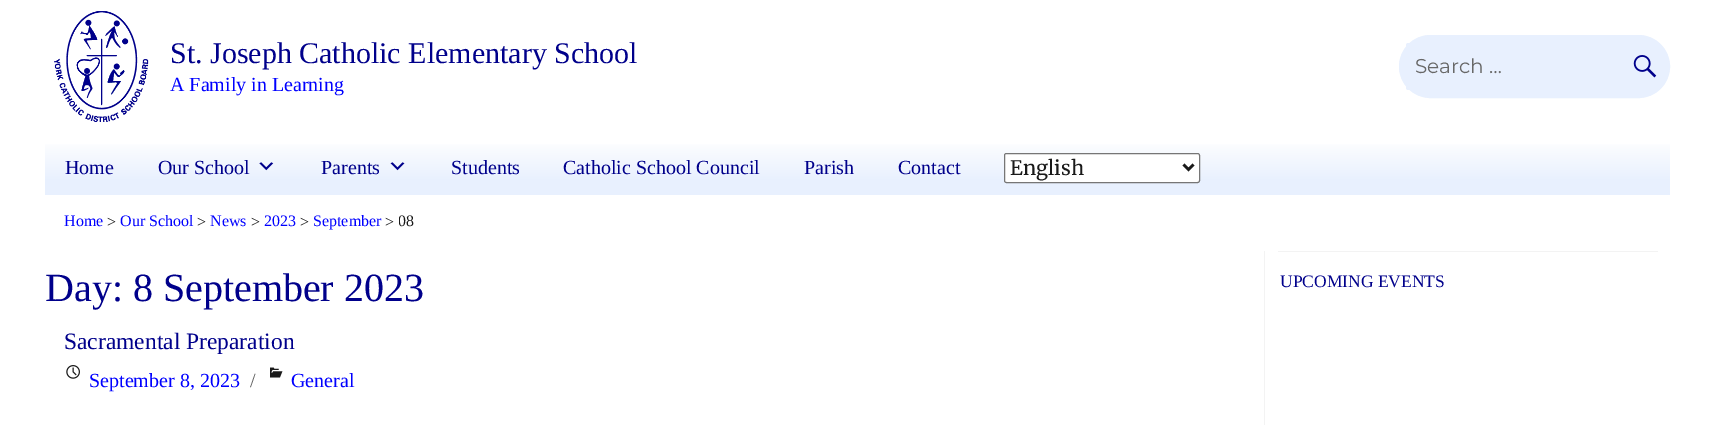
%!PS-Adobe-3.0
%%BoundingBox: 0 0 1714 425
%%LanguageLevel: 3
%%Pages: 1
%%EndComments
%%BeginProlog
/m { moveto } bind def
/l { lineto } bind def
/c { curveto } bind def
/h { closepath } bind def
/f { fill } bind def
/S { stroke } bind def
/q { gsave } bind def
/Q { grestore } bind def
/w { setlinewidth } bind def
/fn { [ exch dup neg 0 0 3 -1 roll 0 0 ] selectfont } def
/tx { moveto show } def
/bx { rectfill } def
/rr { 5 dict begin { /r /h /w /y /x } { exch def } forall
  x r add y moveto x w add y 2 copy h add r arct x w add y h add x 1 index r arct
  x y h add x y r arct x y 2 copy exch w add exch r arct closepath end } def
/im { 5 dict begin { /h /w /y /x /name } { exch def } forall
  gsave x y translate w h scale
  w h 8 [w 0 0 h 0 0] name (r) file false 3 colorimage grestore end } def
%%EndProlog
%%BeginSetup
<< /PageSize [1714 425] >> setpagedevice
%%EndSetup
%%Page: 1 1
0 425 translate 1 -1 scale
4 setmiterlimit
1 setgray
0 0 1714 425 bx
(image0.raw) 54 11 95 111 im
/LiberationSerif-Regular 30 fn
0 0 0.545 setrgbcolor
(St. Joseph Catholic Elementary School) 170 63 tx
/LiberationSerif-Regular 20 fn
0 0 1 setrgbcolor
(A Family in Learning) 170 91 tx
0.91 0.941 0.996 setrgbcolor
1399.5 35.5 270 62 31 rr q f Q
S
1408.5 43 m 1610 43 l 1610 90 l 1408.5 90 l 1407 90 1406 89 1406 87.5 c 1406 45.5 l 1406 44 1407 43 1408.5 43 c h f
/Montserrat-Regular 20 fn
0.408 setgray
(Search …) 1415 73 tx
(image1.raw) 1633 55 24 23 im
q 45 144 m 1670 144 l 1670 195 l 45 195 l h clip newpath
<< /ShadingType 2 /ColorSpace /DeviceRGB /Coords [858 195 858 139] /Extend [true true] /Function << /FunctionType 3 /Domain [0 1] /Functions [<< /FunctionType 2 /Domain [0 1] /C0 [0.91 0.941 0.996] /C1 [0.91 0.941 0.996] /N 1 >> << /FunctionType 2 /Domain [0 1] /C0 [0.91 0.941 0.996] /C1 [1 1 1] /N 1 >>] /Bounds [0.25] /Encode [0 1 0 1] >> >> shfill Q
/LiberationSerif-Regular 20 fn
0 0 0.545 setrgbcolor
(Home) 65 174 tx
(Our School) 158 174 tx
(image2.raw) 259 162 15 9 im
(Parents) 321 174 tx
(image3.raw) 390 162 15 9 im
(Students) 451 174 tx
(Catholic School Council) 563 174 tx
(Parish) 804 174 tx
(Contact) 898 174 tx
1 setgray
1004.5 153.5 195 29 2 rr q f Q
0.463 setgray
S
0.102 setgray
2.5 w
1183.5 164.5 m 1188.5 169.5 l 1193.5 164.5 l S
/Merriweather-Regular 20 fn
(English) 1010 175 tx
/LiberationSerif-Regular 16 fn
0 0 1 setrgbcolor
(Home) 64 226 tx
0.102 setgray
(>) 107 227 tx
0 0 1 setrgbcolor
(Our School) 120 226 tx
0.102 setgray
(>) 197 227 tx
0 0 1 setrgbcolor
(News) 210 226 tx
0.102 setgray
(>) 251 227 tx
0 0 1 setrgbcolor
(2023) 264 226 tx
0.102 setgray
(>) 300 227 tx
0 0 1 setrgbcolor
(September) 313 226 tx
0.102 setgray
(>) 385 227 tx
q
399 208 15 27 rectclip
(08) 398 226 tx
Q
/LiberationSerif-Regular 40 fn
0 0 0.545 setrgbcolor
(Day: 8 September 2023) 45 301 tx
/LiberationSerif-Regular 23.5 fn
(Sacramental Preparation) 64 349 tx
(image4.raw) 66 365 14 14 im
/LiberationSerif-Regular 20 fn
0 0 1 setrgbcolor
(September 8, 2023) 89 387 tx
0.373 setgray
(/) 250 387 tx
(image5.raw) 270 367 13 11 im
0 0 1 setrgbcolor
(General) 291 387 tx
0.953 setgray
1264 251 1 174 bx
1278 251 380 1 bx
/LiberationSerif-Regular 17.5 fn
0 0 0.545 setrgbcolor
(UPCOMING EVENTS) 1280 287 tx
showpage
%%EOF
